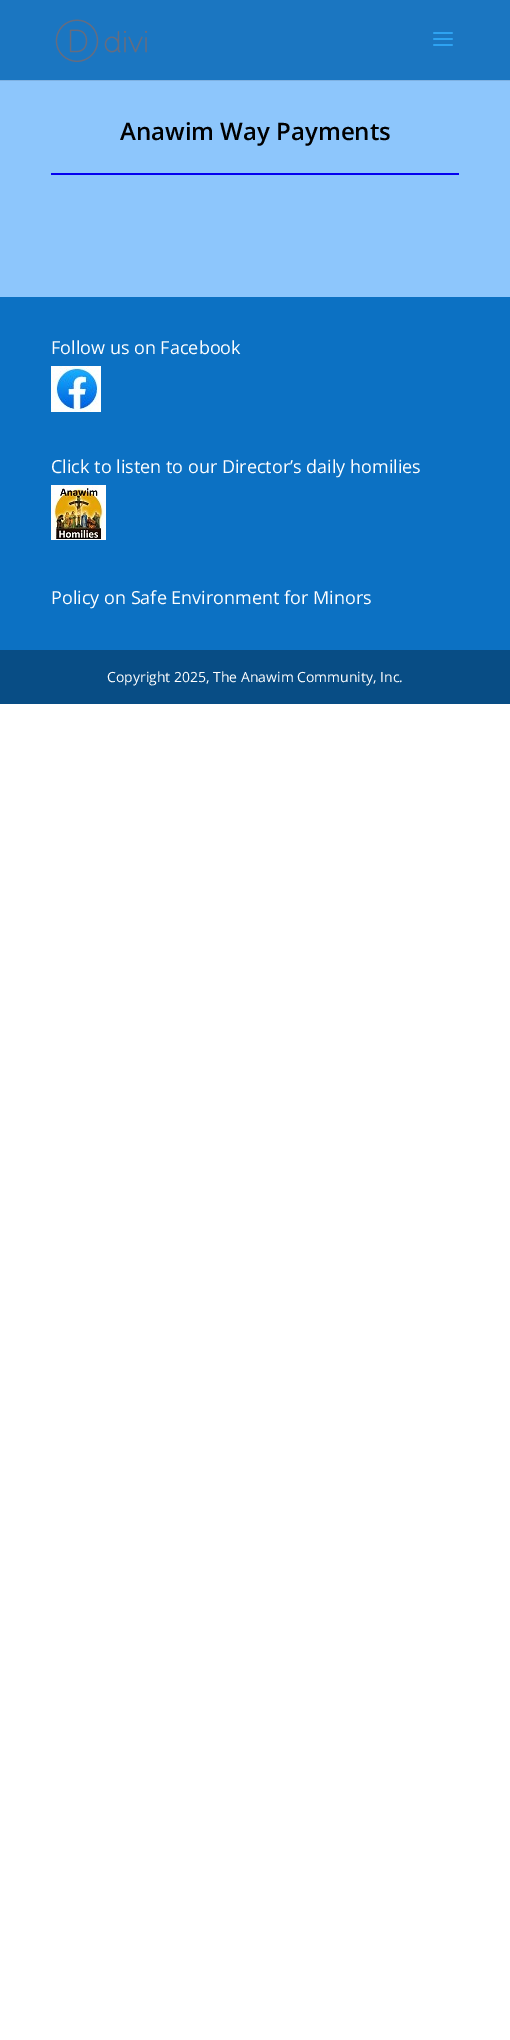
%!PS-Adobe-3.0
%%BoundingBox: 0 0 510 2040
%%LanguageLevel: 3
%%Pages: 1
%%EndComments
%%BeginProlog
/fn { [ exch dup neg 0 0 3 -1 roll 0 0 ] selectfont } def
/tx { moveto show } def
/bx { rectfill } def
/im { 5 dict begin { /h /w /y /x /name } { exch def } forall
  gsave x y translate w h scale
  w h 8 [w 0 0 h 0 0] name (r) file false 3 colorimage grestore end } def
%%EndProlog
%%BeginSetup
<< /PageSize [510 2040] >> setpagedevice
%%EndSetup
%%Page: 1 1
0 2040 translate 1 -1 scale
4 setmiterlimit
1 setgray
0 0 510 2040 bx
0.498 0.698 0.89 setrgbcolor
0 80 510 1 bx
0.106 0.463 0.757 setrgbcolor
0 0 510 80 bx
(image0.raw) 55 19 93 43 im
(image1.raw) 433 32 20 14 im
0.553 0.776 0.988 setrgbcolor
0 81 510 216 bx
/OpenSans-SemiBold 24 fn
0 setgray
(Anawim Way Payments) 120 140 tx
0.016 0 0.941 setrgbcolor
51 173 408 2 bx
0.047 0.443 0.765 setrgbcolor
0 297 510 353 bx
/OpenSans-Regular 18 fn
1 setgray
(Follow us on Facebook) 51 354 tx
(image2.raw) 51 366 50 46 im
(Click to listen to our Director’s daily homilies) 51 473 tx
(image3.raw) 51 485 55 55 im
(Policy on Safe Environment for Minors) 51 604 tx
0.031 0.302 0.522 setrgbcolor
0 650 510 54 bx
/OpenSans-Regular 14 fn
1 setgray
(Copyright 2025, The Anawim Community, Inc.) 107 682 tx
showpage
%%EOF
